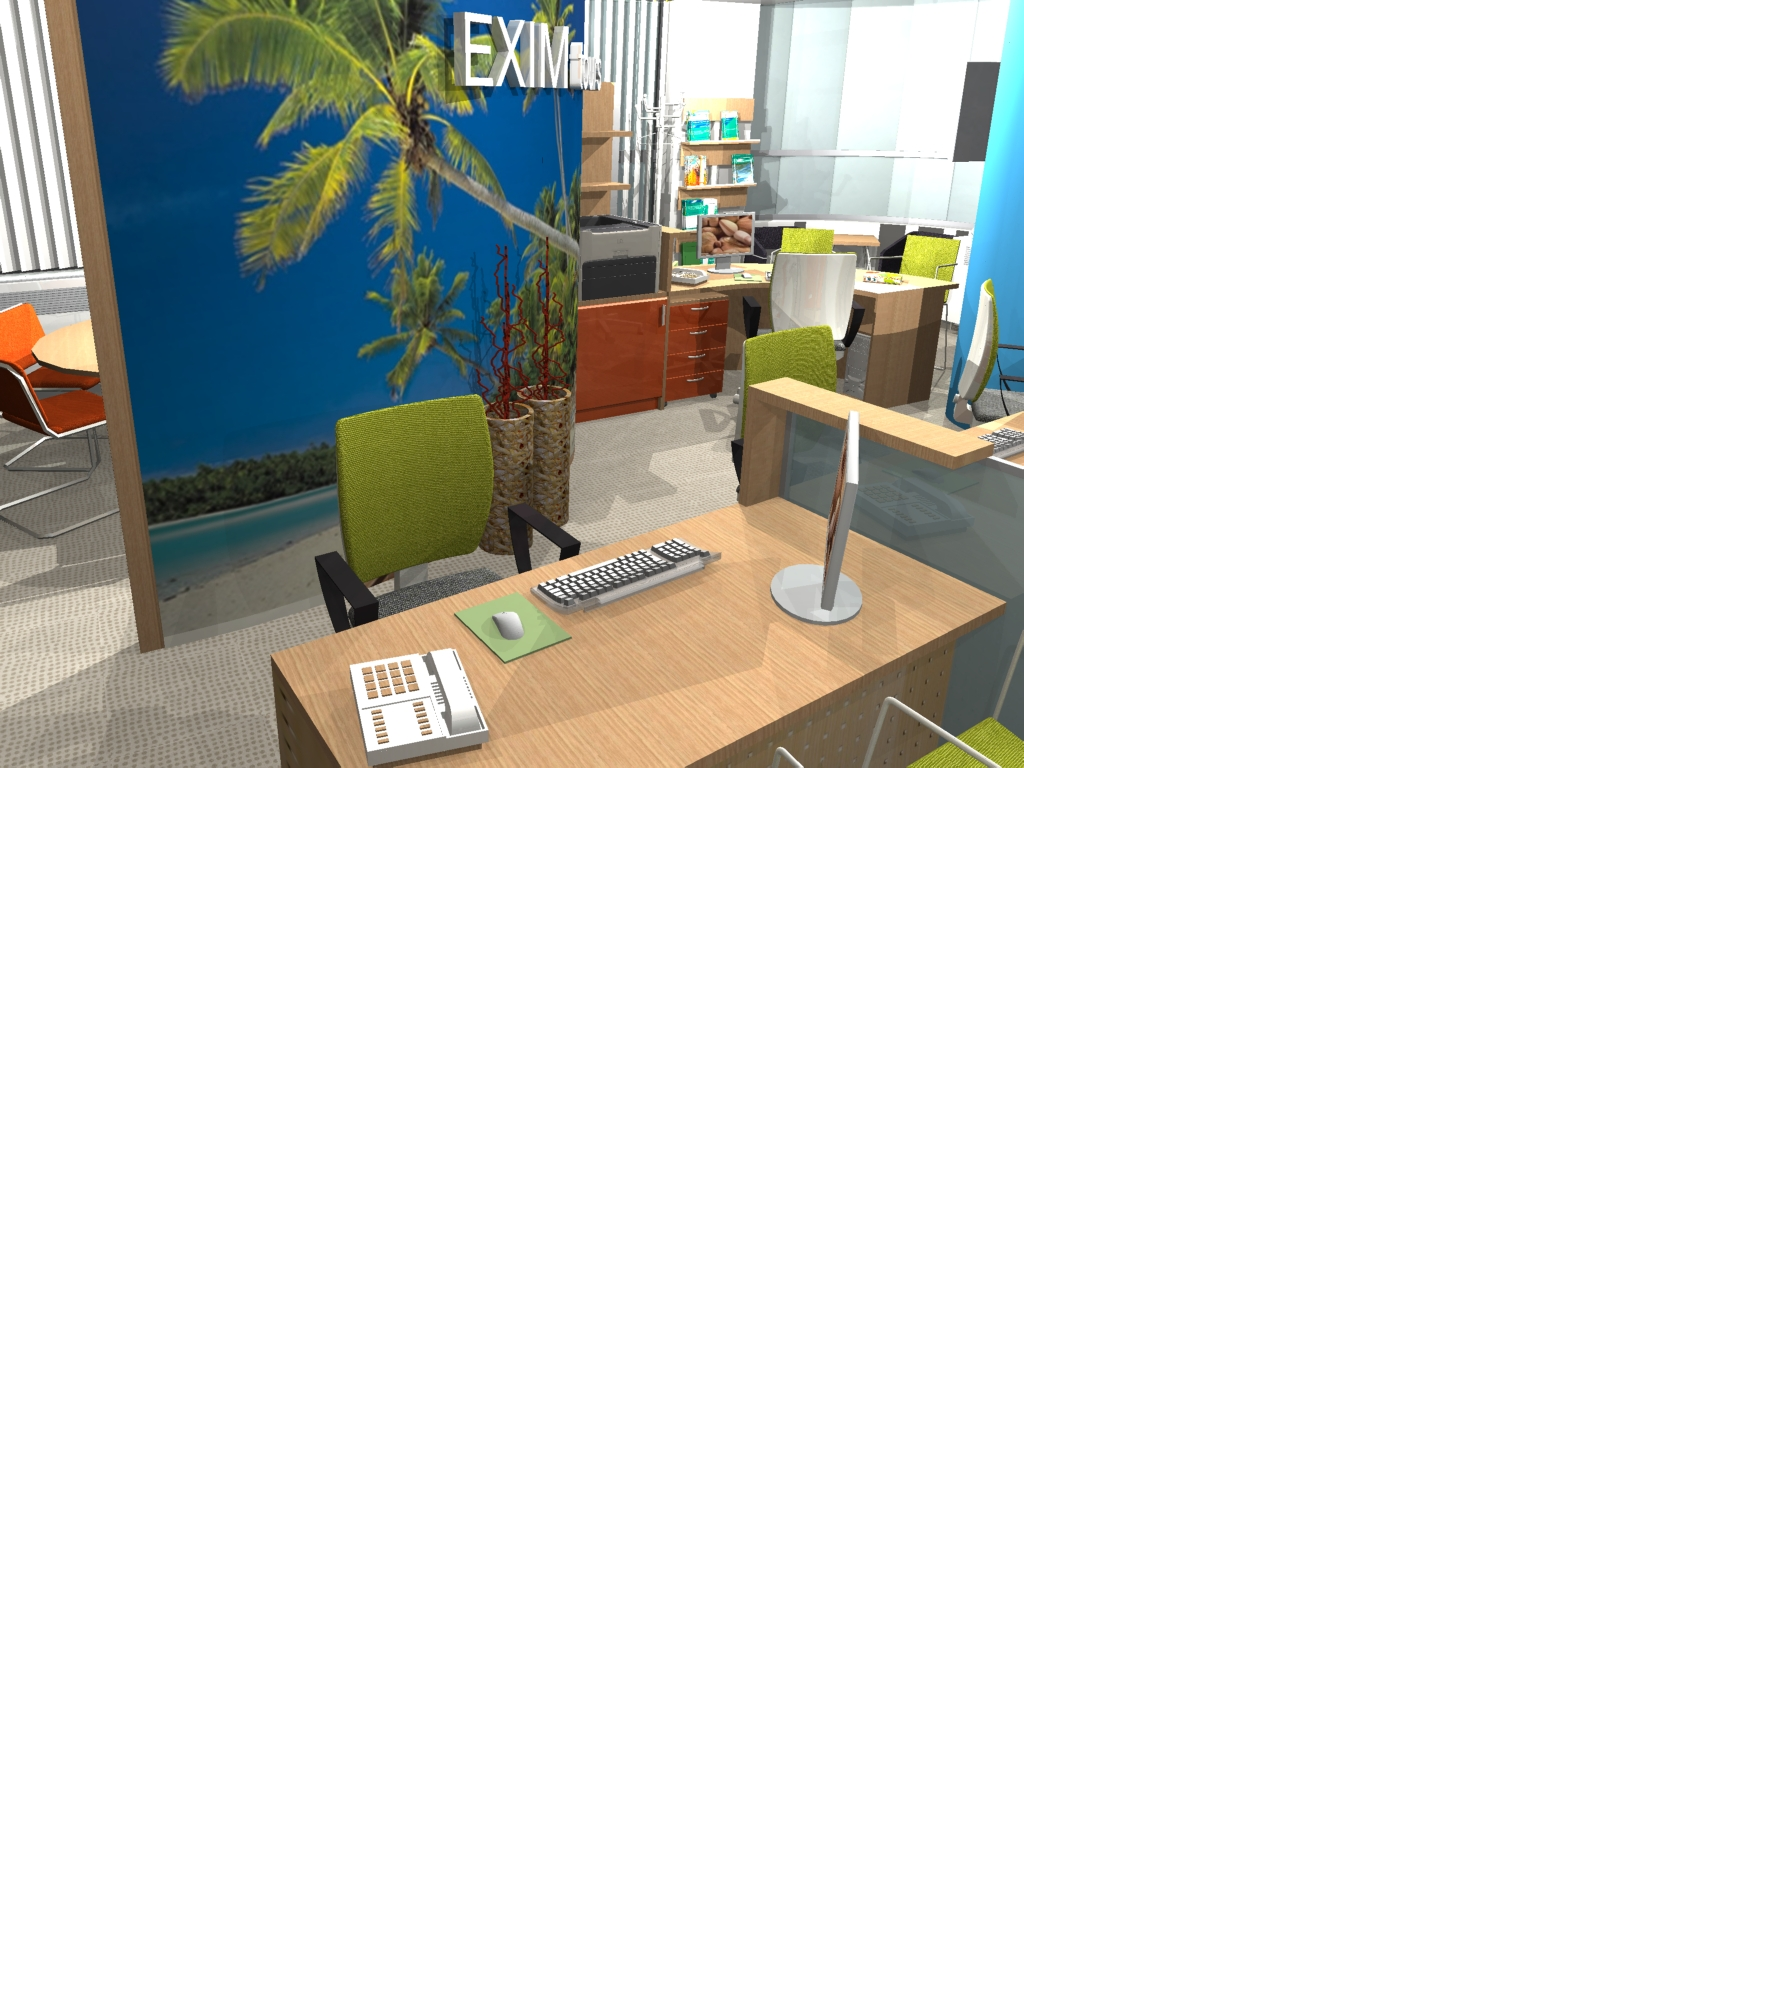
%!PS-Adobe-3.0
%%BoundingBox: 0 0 1777 2009
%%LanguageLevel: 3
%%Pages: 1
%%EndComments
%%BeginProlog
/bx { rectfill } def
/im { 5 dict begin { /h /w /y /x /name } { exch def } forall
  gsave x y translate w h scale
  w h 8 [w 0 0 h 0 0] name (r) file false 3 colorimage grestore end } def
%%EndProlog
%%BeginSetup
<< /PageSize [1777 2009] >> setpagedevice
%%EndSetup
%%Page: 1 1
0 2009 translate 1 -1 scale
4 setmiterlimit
1 setgray
0 0 1777 2009 bx
(image0.raw) 0 0 1024 768 im
showpage
%%EOF
